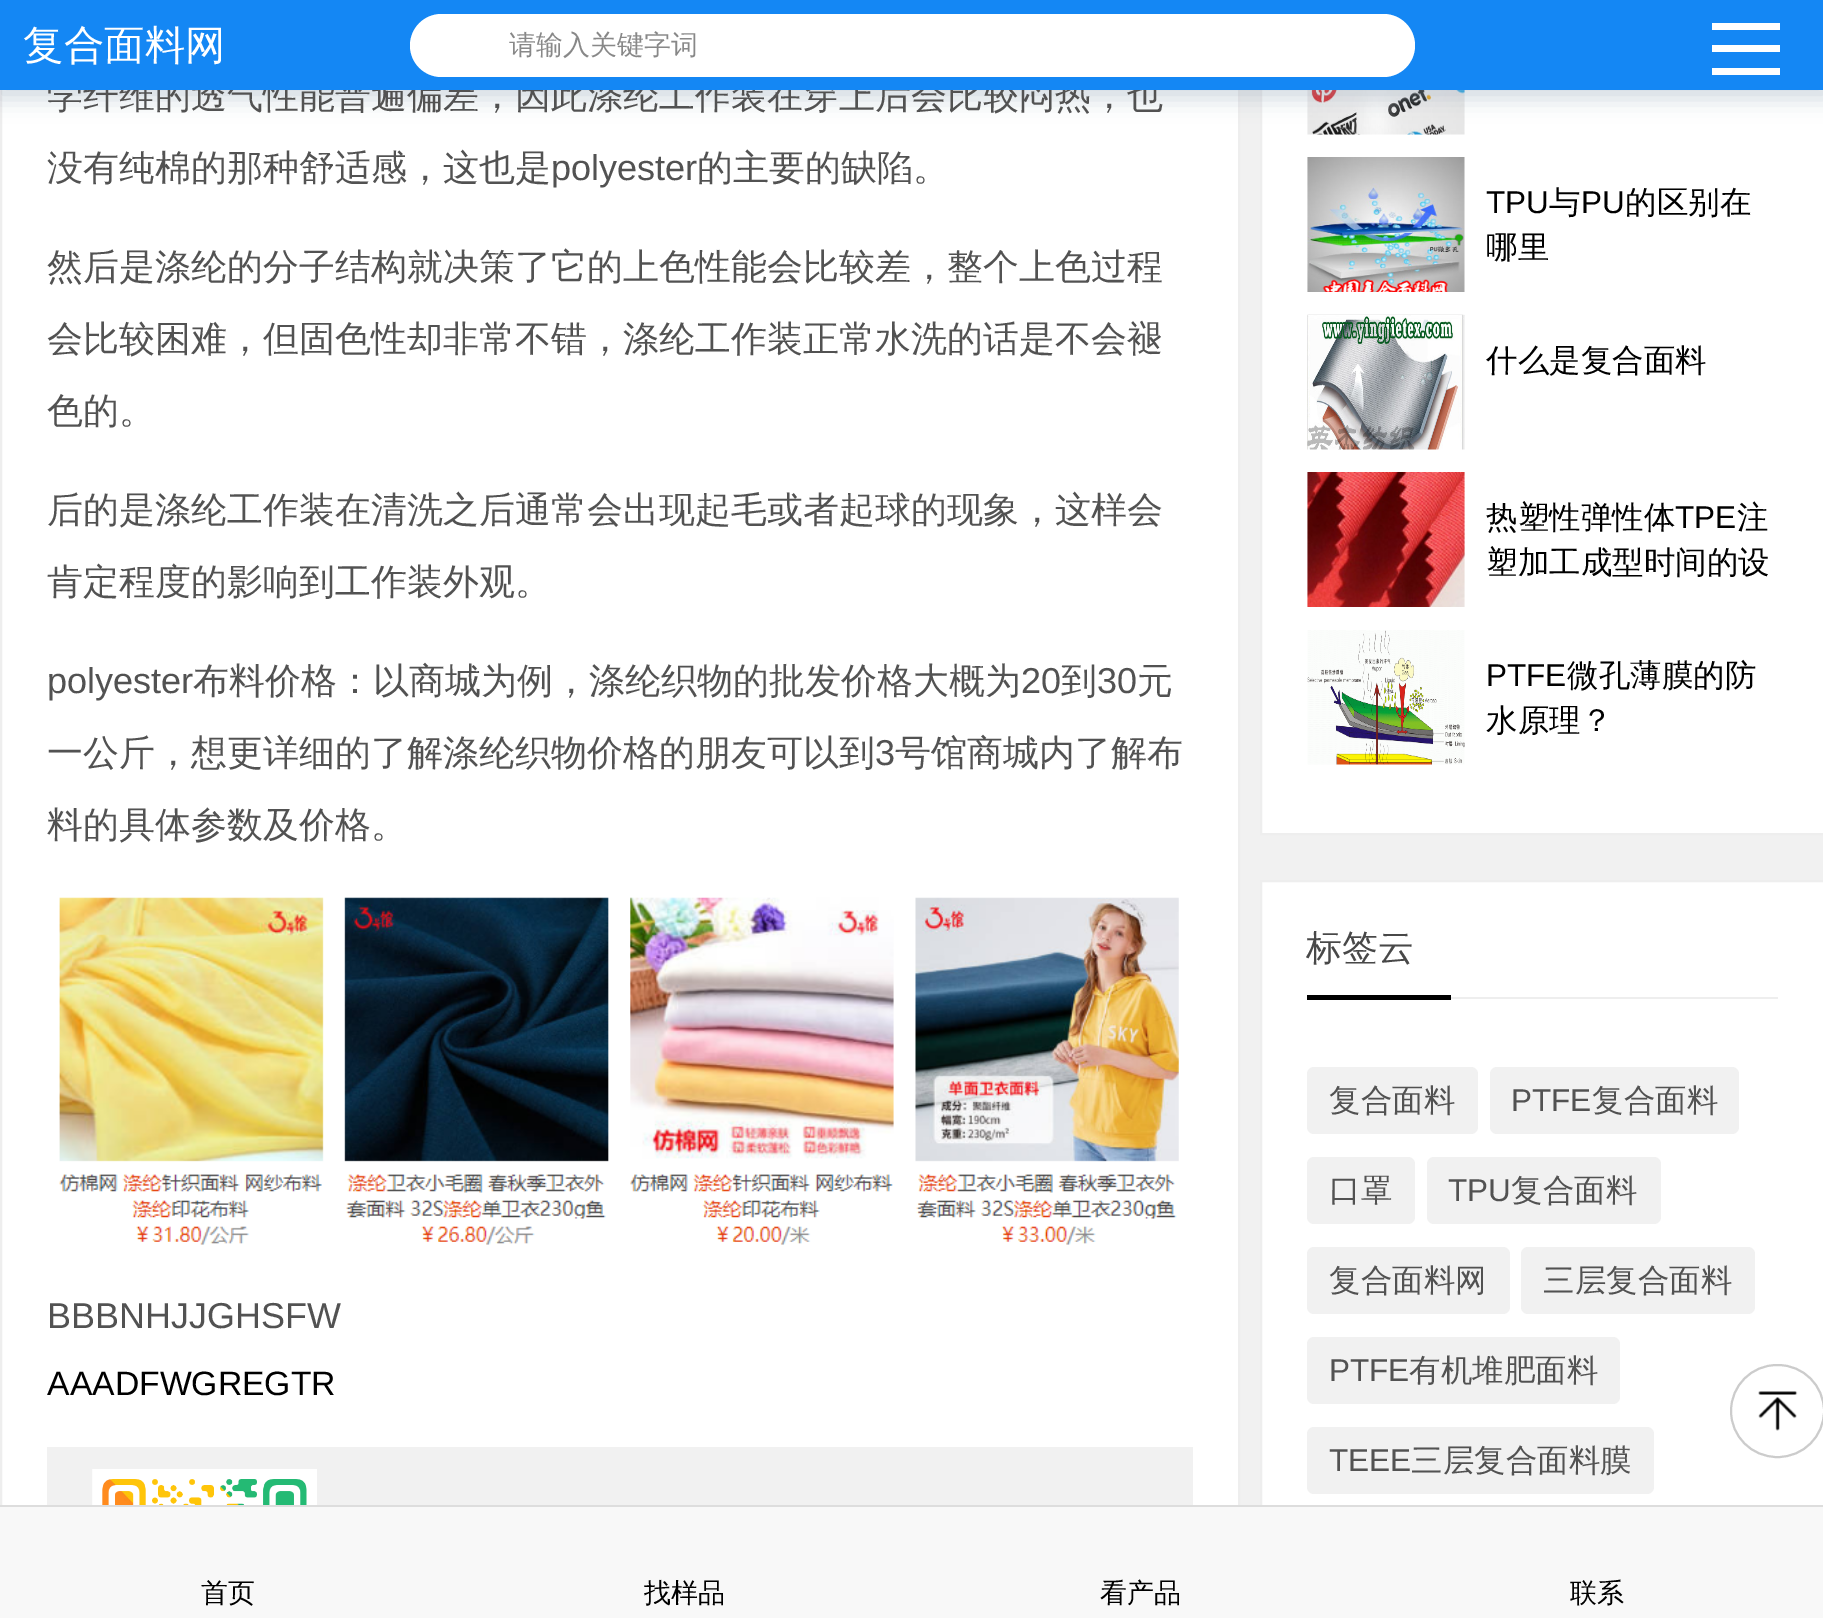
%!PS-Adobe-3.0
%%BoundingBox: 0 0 1823 1618
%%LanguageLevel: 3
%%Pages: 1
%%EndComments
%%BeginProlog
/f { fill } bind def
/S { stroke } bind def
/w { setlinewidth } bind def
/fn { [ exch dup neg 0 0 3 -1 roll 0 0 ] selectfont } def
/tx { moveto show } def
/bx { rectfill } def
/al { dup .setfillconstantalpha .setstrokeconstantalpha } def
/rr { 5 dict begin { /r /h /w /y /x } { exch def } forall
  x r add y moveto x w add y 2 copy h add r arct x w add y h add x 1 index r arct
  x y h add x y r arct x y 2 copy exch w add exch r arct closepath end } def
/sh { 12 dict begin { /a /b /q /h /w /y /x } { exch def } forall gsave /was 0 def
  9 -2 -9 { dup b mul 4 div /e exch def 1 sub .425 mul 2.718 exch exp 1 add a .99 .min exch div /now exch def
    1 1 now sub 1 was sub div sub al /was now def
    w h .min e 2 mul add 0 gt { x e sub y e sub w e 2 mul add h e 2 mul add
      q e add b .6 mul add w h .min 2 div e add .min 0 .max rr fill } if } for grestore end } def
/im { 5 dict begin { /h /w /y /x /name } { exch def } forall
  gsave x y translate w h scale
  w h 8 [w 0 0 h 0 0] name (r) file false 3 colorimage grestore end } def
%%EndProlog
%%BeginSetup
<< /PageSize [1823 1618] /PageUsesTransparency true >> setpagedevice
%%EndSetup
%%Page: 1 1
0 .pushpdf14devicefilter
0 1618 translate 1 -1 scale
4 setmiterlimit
0.945 setgray
0 0 1823 1618 bx
1 setgray
2 90 1236 1415 bx
0.933 setgray
2 w
1 -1 1238 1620 rectstroke
1 setgray
1262 90 561 743 bx
0.933 setgray
1261 -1 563 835 rectstroke
(image2.raw) 1307 90 158 45 im
0.565 0.631 0.706 setrgbcolor
-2 5 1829 94 0 11 0.4 sh
/WenQuanYiZenHei-Medium 36 fn
0.322 setgray
(学纤维的透气性能普遍偏差，因此涤纶工作装在穿上后会比较闷热，也) 47 108 tx
0.078 0.529 0.957 setrgbcolor
0 0 1823 90 bx
/WenQuanYiZenHei-Medium 40.5 fn
1 setgray
(复合面料网) 23 59 tx
1712 45 68 7 bx
1 0.996 0.996 setrgbcolor
1712 23 68 7 bx
1712 68 68 7 bx
1 setgray
410 14 1005 63 31.5 rr f
/WenQuanYiZenHei-Medium 27 fn
0.533 setgray
(请输入关键字词) 509 54 tx
/WenQuanYiZenHei-Medium 36 fn
0.322 setgray
(没有纯棉的那种舒适感，这也是) 47 180 tx
/LiberationSans-Regular 36 fn
(polyester) 551 180 tx
/WenQuanYiZenHei-Medium 36 fn
(的主要的缺陷。) 697 180 tx
(然后是涤纶的分子结构就决策了它的上色性能会比较差，整个上色过程) 47 279 tx
(会比较困难，但固色性却非常不错，涤纶工作装正常水洗的话是不会褪) 47 351 tx
(色的。) 47 423 tx
(后的是涤纶工作装在清洗之后通常会出现起毛或者起球的现象，这样会) 47 522 tx
(肯定程度的影响到工作装外观。) 47 594 tx
/LiberationSans-Regular 36 fn
(polyester) 47 693 tx
/WenQuanYiZenHei-Medium 36 fn
(布料价格：以商城为例，涤纶织物的批发价格大概为) 193 693 tx
/LiberationSans-Regular 36 fn
(20) 1021 693 tx
/WenQuanYiZenHei-Medium 36 fn
(到) 1061 693 tx
/LiberationSans-Regular 36 fn
(30) 1097 693 tx
/WenQuanYiZenHei-Medium 36 fn
(元) 1137 693 tx
(一公斤，想更详细的了解涤纶织物价格的朋友可以到) 47 765 tx
/LiberationSans-Regular 36 fn
(3) 875 765 tx
/WenQuanYiZenHei-Medium 36 fn
(号馆商城内了解布) 895 765 tx
(料的具体参数及价格。) 47 837 tx
(image0.raw) 59 897 1120 348 im
/LiberationSans-Regular 36 fn
(BBBNHJJGHSFW) 47 1328 tx
/LiberationSans-Regular 33.75 fn
0 setgray
(AAADFWGREGTR) 47 1395 tx
0.945 setgray
47 1447 1146 58 bx
(image1.raw) 92 1469 225 36 im
(image3.raw) 1307 157 158 135 im
/LiberationSans-Regular 31.5 fn
0 setgray
(TPU) 1486 213 tx
/WenQuanYiZenHei-Medium 31.5 fn
(与) 1549 213 tx
/LiberationSans-Regular 31.5 fn
(PU) 1581 213 tx
/WenQuanYiZenHei-Medium 31.5 fn
(的区别在) 1625 213 tx
(哪里) 1486 258 tx
(image4.raw) 1307 314 158 136 im
(什么是复合面料) 1486 371 tx
(image5.raw) 1307 472 158 135 im
(热塑性弹性体) 1486 528 tx
/LiberationSans-Regular 31.5 fn
(TPE) 1675 528 tx
/WenQuanYiZenHei-Medium 31.5 fn
(注) 1737 528 tx
(塑加工成型时间的设) 1486 573 tx
(image6.raw) 1307 630 158 135 im
/LiberationSans-Regular 31.5 fn
(PTFE) 1486 686 tx
/WenQuanYiZenHei-Medium 31.5 fn
(微孔薄膜的防) 1567 686 tx
(水原理？) 1486 731 tx
1 setgray
1262 882 561 623 bx
0.933 setgray
1261 881 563 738 rectstroke
1451 997 327 2 bx
/WenQuanYiZenHei-Medium 36 fn
0.282 setgray
(标签云) 1306 960 tx
0 setgray
1307 995 144 5 bx
0.945 setgray
1307 1067 171 67 7 rr f
/WenQuanYiZenHei-Medium 31.5 fn
0.322 setgray
(复合面料) 1329 1111 tx
0.945 setgray
1490 1067 249 67 7 rr f
/LiberationSans-Regular 31.5 fn
0.322 setgray
(PTFE) 1511 1111 tx
/WenQuanYiZenHei-Medium 31.5 fn
(复合面料) 1592 1111 tx
0.945 setgray
1307 1157 108 67 7 rr f
0.322 setgray
(口罩) 1329 1201 tx
0.945 setgray
1427 1157 234 67 7 rr f
/LiberationSans-Regular 31.5 fn
0.322 setgray
(TPU) 1448 1201 tx
/WenQuanYiZenHei-Medium 31.5 fn
(复合面料) 1511 1201 tx
0.945 setgray
1307 1247 203 67 7 rr f
0.322 setgray
(复合面料网) 1329 1291 tx
0.945 setgray
1521 1247 234 67 7 rr f
0.322 setgray
(三层复合面料) 1543 1291 tx
0.945 setgray
1307 1337 313 67 7 rr f
/LiberationSans-Regular 31.5 fn
0.322 setgray
(PTFE) 1329 1381 tx
/WenQuanYiZenHei-Medium 31.5 fn
(有机堆肥面料) 1409 1381 tx
0.945 setgray
1307 1427 347 67 7 rr f
/LiberationSans-Regular 31.5 fn
0.322 setgray
(TEEE) 1329 1471 tx
/WenQuanYiZenHei-Medium 31.5 fn
(三层复合面料膜) 1411 1471 tx
(image7.raw) 1758 1391 40 40 im
0.8 setgray
1731 1365 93 92 46 rr S
0.973 setgray
0 1507 1823 111 bx
0.867 setgray
0 1505 1823 2 bx
/WenQuanYiZenHei-Medium 27 fn
0 setgray
(首页) 201 1602 tx
(找样品) 644 1602 tx
(看产品) 1100 1602 tx
(联系) 1570 1602 tx
.poppdf14devicefilter showpage
%%EOF
